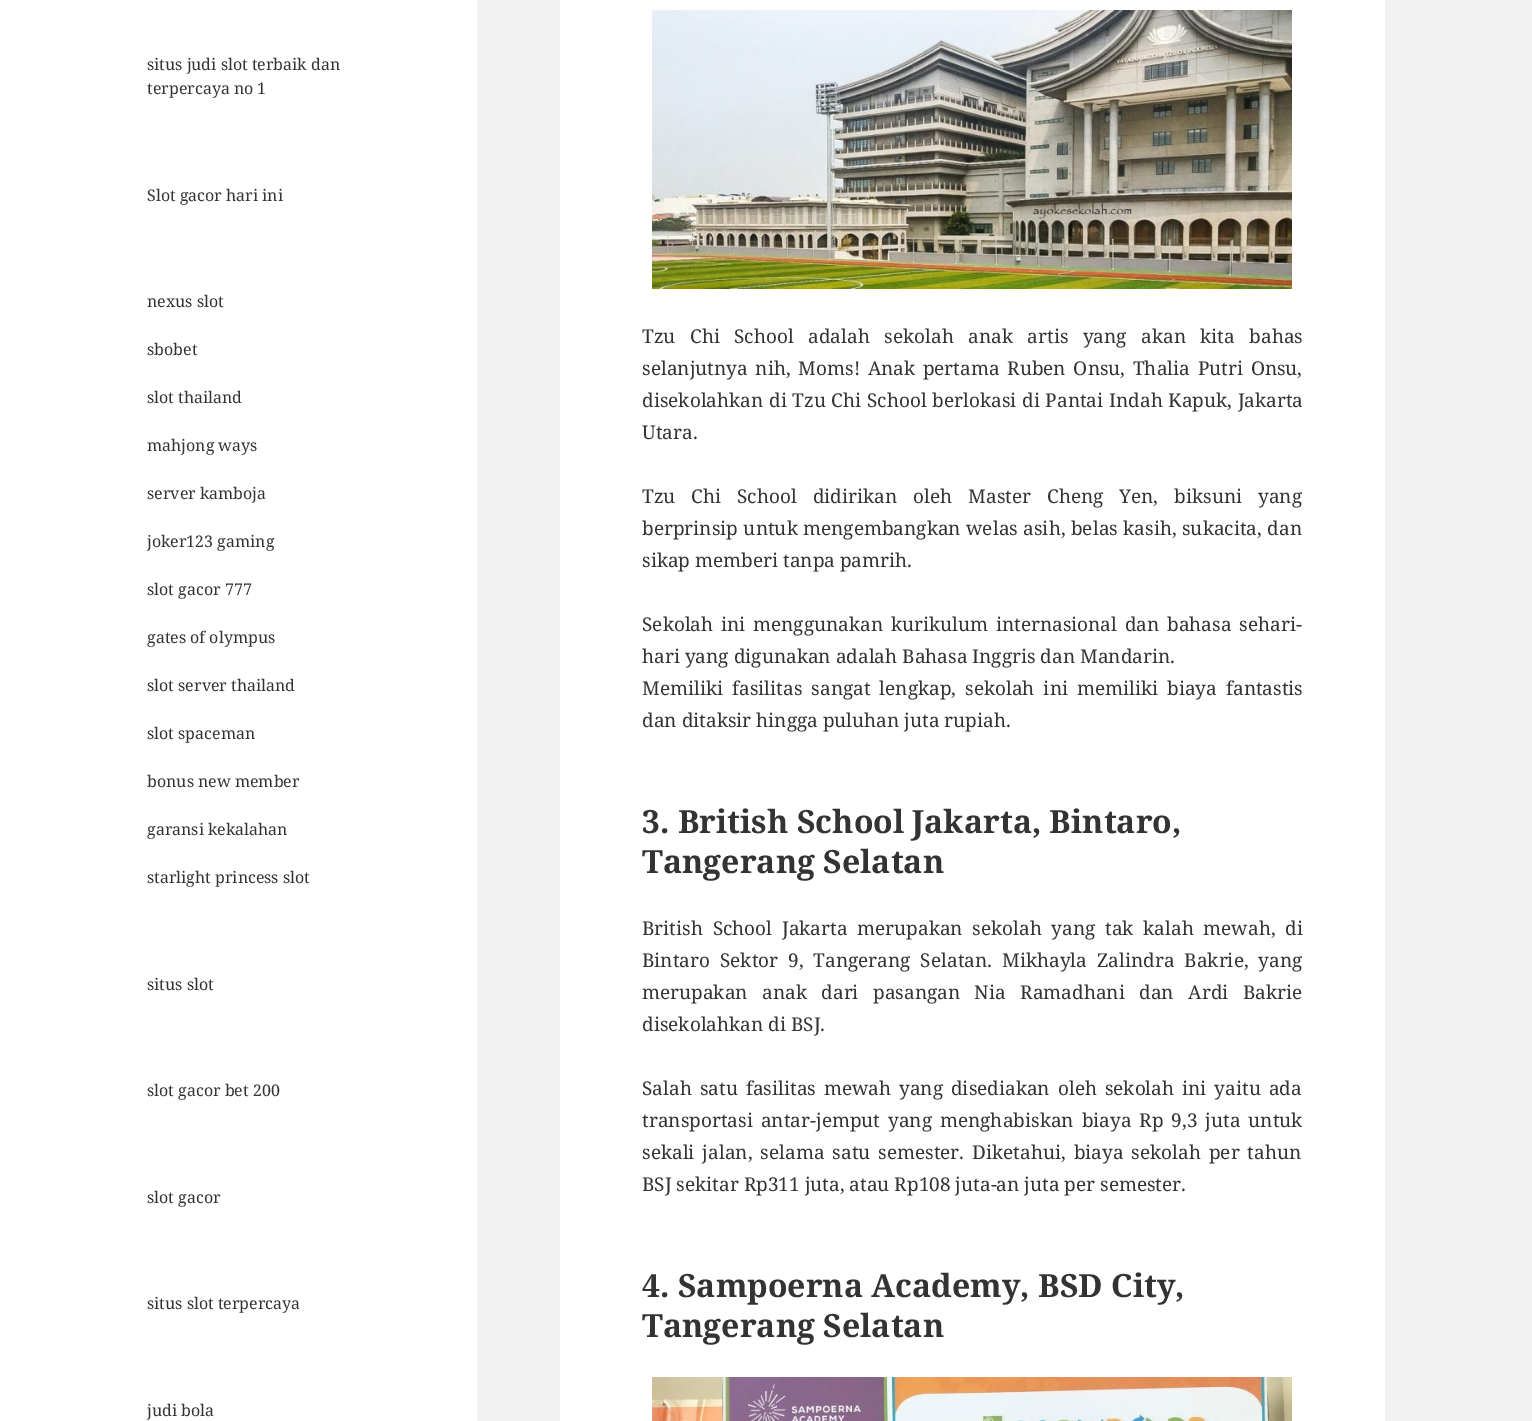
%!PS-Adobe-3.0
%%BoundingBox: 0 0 1532 1421
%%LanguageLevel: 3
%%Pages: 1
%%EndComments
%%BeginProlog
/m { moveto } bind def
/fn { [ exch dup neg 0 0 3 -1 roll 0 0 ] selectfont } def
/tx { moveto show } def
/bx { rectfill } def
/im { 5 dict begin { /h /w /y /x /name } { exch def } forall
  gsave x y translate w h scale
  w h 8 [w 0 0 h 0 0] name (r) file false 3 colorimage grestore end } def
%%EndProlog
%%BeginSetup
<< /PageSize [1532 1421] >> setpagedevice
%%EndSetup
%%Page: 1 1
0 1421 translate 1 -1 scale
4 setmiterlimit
0.945 setgray
0 0 1532 1421 bx
1 setgray
0 0 477 1421 bx
/NotoSerif-Regular 16 fn
0.2 setgray
(situs judi slot terbaik dan) 147 70 tx
(terpercaya no 1) 147 94 tx
(Slot gacor hari ini) 147 201 tx
(nexus slot) 147 307 tx
(sbobet) 147 355 tx
(slot thailand) 147 403 tx
(mahjong ways) 147 451 tx
(server kamboja) 147 499 tx
(joker123 gaming) 147 547 tx
(slot gacor 777) 147 595 tx
(gates of olympus) 147 643 tx
(slot server thailand) 147 691 tx
(slot spaceman) 147 739 tx
(bonus new member) 147 787 tx
(garansi kekalahan) 147 835 tx
(starlight princess slot) 147 883 tx
(situs slot) 147 990 tx
(slot gacor bet 200) 147 1096 tx
(slot gacor) 147 1203 tx
(situs slot terpercaya) 147 1309 tx
(judi bola) 147 1416 tx
1 setgray
560 0 825 1421 bx
(image0.raw) 652 10 640 279 im
/NotoSerif-Regular 19 fn
0.2 setgray
642 343 m 9.5 0 32 (Tzu Chi School adalah sekolah anak artis yang akan kita bahas) widthshow
642 375 m 2.75 0 32 (selanjutnya nih, Moms! Anak pertama Ruben Onsu, Thalia Putri Onsu,) widthshow
642 407 m 0.75 0 32 (disekolahkan di Tzu Chi School berlokasi di Pantai Indah Kapuk, Jakarta) widthshow
(Utara.) 642 439 tx
642 503 m 11 0 32 (Tzu Chi School didirikan oleh Master Cheng Yen, biksuni yang) widthshow
642 535 m 0.5 0 32 (berprinsip untuk mengembangkan welas asih, belas kasih, sukacita, dan) widthshow
(sikap memberi tanpa pamrih.) 642 567 tx
642 631 m 2.75 0 32 (Sekolah ini menggunakan kurikulum internasional dan bahasa sehari-) widthshow
(hari yang digunakan adalah Bahasa Inggris dan Mandarin.) 642 663 tx
642 695 m 4 0 32 (Memiliki fasilitas sangat lengkap, sekolah ini memiliki biaya fantastis) widthshow
(dan ditaksir hingga puluhan juta rupiah.) 642 727 tx
/NotoSerif-Bold 32 fn
(3. British School Jakarta, Bintaro,) 642 833 tx
(Tangerang Selatan) 642 873 tx
/NotoSerif-Regular 19 fn
642 935 m 4.75 0 32 (British School Jakarta merupakan sekolah yang tak kalah mewah, di) widthshow
642 967 m 5 0 32 (Bintaro Sektor 9, Tangerang Selatan. Mikhayla Zalindra Bakrie, yang) widthshow
642 999 m 9.5 0 32 (merupakan anak dari pasangan Nia Ramadhani dan Ardi Bakrie) widthshow
(disekolahkan di BSJ.) 642 1031 tx
642 1095 m 3 0 32 (Salah satu fasilitas mewah yang disediakan oleh sekolah ini yaitu ada) widthshow
642 1127 m 3 0 32 (transportasi antar-jemput yang menghabiskan biaya Rp 9,3 juta untuk) widthshow
642 1159 m 3 0 32 (sekali jalan, selama satu semester. Diketahui, biaya sekolah per tahun) widthshow
(BSJ sekitar Rp311 juta, atau Rp108 juta-an juta per semester.) 642 1191 tx
/NotoSerif-Bold 32 fn
(4. Sampoerna Academy, BSD City,) 642 1297 tx
(Tangerang Selatan) 642 1337 tx
(image1.raw) 652 1377 640 44 im
showpage
%%EOF
